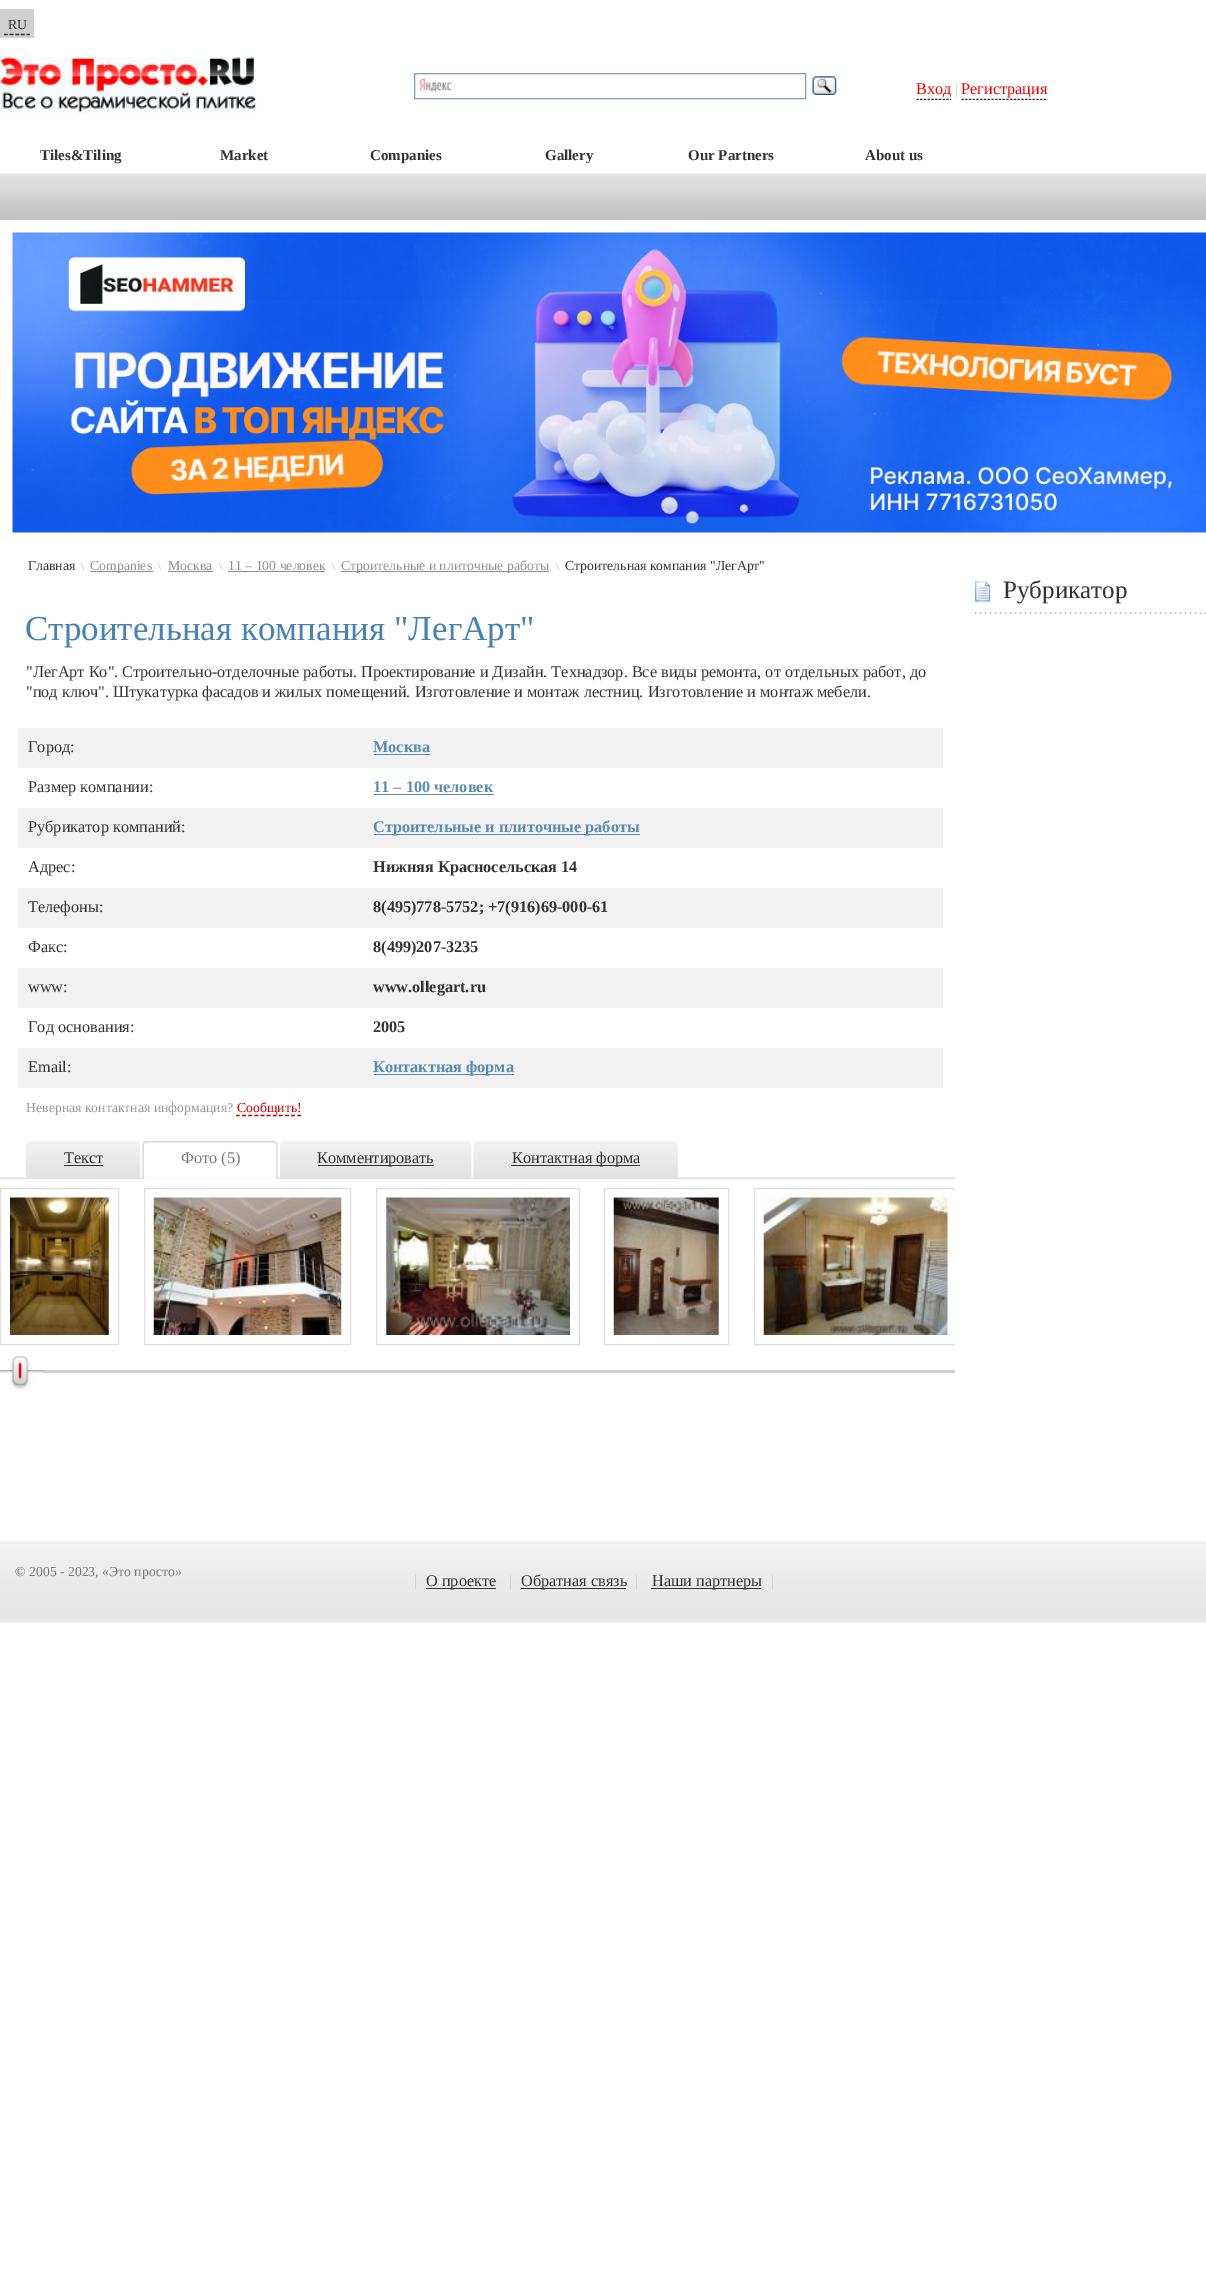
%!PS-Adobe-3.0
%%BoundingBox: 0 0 1206 2294
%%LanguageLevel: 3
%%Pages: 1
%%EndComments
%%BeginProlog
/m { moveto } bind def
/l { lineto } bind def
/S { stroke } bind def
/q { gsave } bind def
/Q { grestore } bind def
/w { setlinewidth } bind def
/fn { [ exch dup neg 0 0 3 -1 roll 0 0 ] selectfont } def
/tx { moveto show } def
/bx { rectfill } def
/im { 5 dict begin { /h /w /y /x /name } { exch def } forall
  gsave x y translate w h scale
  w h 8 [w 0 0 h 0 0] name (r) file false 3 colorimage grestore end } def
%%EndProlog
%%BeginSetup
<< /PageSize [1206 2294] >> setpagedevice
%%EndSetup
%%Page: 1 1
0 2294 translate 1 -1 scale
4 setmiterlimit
1 setgray
0 0 1206 2294 bx
0.816 setgray
0 9 34 29 bx
0.2 setgray
1.2 w
[3.75 1.88] 0 setdash
4 34.5 m 30 34.5 l S
/LiberationSerif-Regular 13.75 fn
(RU) 8 29 tx
(image0.raw) 0 57 257 56 im
(image1.raw) 418 78 34 15 im
0.498 0.616 0.725 setrgbcolor
1 w
[] 0 setdash
414.5 73.5 391 25 rectstroke
(image2.raw) 812 76 25 19 im
/LiberationSerif-Regular 16.25 fn
0.941 0 0 setrgbcolor
(Вход) 916 94 tx
/LiberationSerif-Regular 13.75 fn
0.8 setgray
(|) 955 94 tx
/LiberationSerif-Regular 16.25 fn
0.941 0 0 setrgbcolor
(Регистрация) 961 94 tx
(image3.raw) 916 98 36 2 im
(image4.raw) 961 98 87 2 im
/LiberationSerif-Bold 15 fn
0.2 setgray
(Tiles&Tiling) 40 160 tx
(Market) 220 160 tx
(Companies) 370 160 tx
(Gallery) 545 160 tx
(Our Partners) 688 160 tx
(About us) 865 160 tx
(image5.raw) 0 173 1206 47 im
(image6.raw) 12 232 1194 301 im
/LiberationSerif-Regular 13.75 fn
(Главная) 28 570 tx
/LiberationSerif-Bold 11 fn
0.8 setgray
(\\) 81 570 tx
0.565 setgray
90 571 63 1 bx
/LiberationSerif-Regular 13.75 fn
(Companies) 90 570 tx
/LiberationSerif-Bold 11 fn
0.8 setgray
(\\) 158 570 tx
/LiberationSerif-Regular 13.75 fn
0.565 setgray
(Москва) 168 570 tx
168 571 45 1 bx
/LiberationSerif-Bold 11 fn
0.8 setgray
(\\) 219 570 tx
/LiberationSerif-Regular 13.75 fn
0.565 setgray
(11 – 100 человек) 228 570 tx
228 571 97 1 bx
/LiberationSerif-Bold 11 fn
0.8 setgray
(\\) 332 570 tx
0.565 setgray
341 571 208 1 bx
/LiberationSerif-Regular 13.75 fn
(Строительные и плиточные работы) 341 570 tx
/LiberationSerif-Bold 11 fn
0.8 setgray
(\\) 556 570 tx
/LiberationSerif-Regular 13.75 fn
0.2 setgray
(Строительная компания "ЛегАрт") 565 570 tx
/LiberationSerif-Regular 35 fn
0.275 0.51 0.706 setrgbcolor
(Строительная компания "ЛегАрт") 25 640 tx
/LiberationSerif-Regular 16.25 fn
0.2 setgray
("ЛегАрт Ко". Строительно-отделочные работы. Проектирование и Дизайн. Технадзор. Все виды ремонта, от отдельных работ, до) 26 677 tx
("под ключ". Штукатурка фасадов и жилых помещений. Изготовление и монтаж лестниц. Изготовление и монтаж мебели.) 26 697 tx
0.945 setgray
18 728 925 40 bx
0.2 setgray
(Город:) 28 752 tx
/LiberationSerif-Bold 16.25 fn
0.365 0.541 0.69 setrgbcolor
(Москва) 373 752 tx
374 754 56 1 bx
/LiberationSerif-Regular 16.25 fn
0.2 setgray
(Размер компании:) 28 792 tx
/LiberationSerif-Bold 16.25 fn
0.365 0.541 0.69 setrgbcolor
(11 – 100 человек) 373 792 tx
374 794 120 1 bx
0.945 setgray
18 808 925 40 bx
/LiberationSerif-Regular 16.25 fn
0.2 setgray
(Рубрикатор компаний:) 28 832 tx
0.365 0.541 0.69 setrgbcolor
374 834 266 1 bx
/LiberationSerif-Bold 16.25 fn
(Строительные и плиточные работы) 373 832 tx
/LiberationSerif-Regular 16.25 fn
0.2 setgray
(Адрес:) 28 872 tx
/LiberationSerif-Bold 16.25 fn
(Нижняя Красносельская 14) 373 872 tx
0.945 setgray
18 888 925 40 bx
/LiberationSerif-Regular 16.25 fn
0.2 setgray
(Телефоны:) 28 912 tx
/LiberationSerif-Bold 16.25 fn
(8\(495\)778-5752; +7\(916\)69-000-61) 373 912 tx
/LiberationSerif-Regular 16.25 fn
(Факс:) 28 952 tx
/LiberationSerif-Bold 16.25 fn
(8\(499\)207-3235) 373 952 tx
0.945 setgray
18 968 925 40 bx
/LiberationSerif-Regular 16.25 fn
0.2 setgray
(www:) 28 992 tx
/LiberationSerif-Bold 16.25 fn
(www.ollegart.ru) 373 992 tx
/LiberationSerif-Regular 16.25 fn
(Год основания:) 28 1032 tx
/LiberationSerif-Bold 16.25 fn
(2005) 373 1032 tx
0.945 setgray
18 1048 925 40 bx
/LiberationSerif-Regular 16.25 fn
0.2 setgray
(Email:) 28 1072 tx
0.365 0.541 0.69 setrgbcolor
374 1074 140 1 bx
/LiberationSerif-Bold 16.25 fn
(Контактная форма) 373 1072 tx
/LiberationSerif-Regular 13.75 fn
0.6 setgray
(Неверная контактная информация?) 26 1112 tx
0.8 0 0 setrgbcolor
1.2 w
[3.75 2.38] 0 setdash
236 1115.5 m 301 1115.5 l S
(Сообщить!) 237 1112 tx
(image7.raw) 0 1177 955 2 im
(image8.raw) 26 1141 114 37 im
(image9.raw) 26 1141 2 36 im
(image10.raw) 138 1141 2 3 im
/LiberationSerif-Regular 16.25 fn
0.2 setgray
(Текст) 64 1163 tx
0.192 setgray
64 1165 39 1 bx
(image11.raw) 142 1141 136 38 im
(image12.raw) 142 1141 6 38 im
(image13.raw) 272 1141 6 38 im
0.475 setgray
(Фото \(5\)) 181 1163 tx
(image14.raw) 280 1141 192 37 im
(image15.raw) 280 1141 2 3 im
(image16.raw) 470 1141 2 36 im
0.192 setgray
318 1165 116 1 bx
0.2 setgray
(Комментировать) 317 1163 tx
(image17.raw) 473 1141 205 37 im
(image18.raw) 473 1141 2 36 im
(image19.raw) 676 1141 2 36 im
0.192 setgray
511 1165 129 1 bx
0.2 setgray
(Контактная форма) 512 1163 tx
0.875 setgray
1 w
[] 0 setdash
0.5 1188.5 118 156 rectstroke
144.5 1188.5 206 156 rectstroke
376.5 1188.5 203 156 rectstroke
604.5 1188.5 124 156 rectstroke
q
0 1188 955 162 rectclip
754.5 1188.5 203 156 rectstroke
Q
(image20.raw) 10 1197 99 138 im
(image21.raw) 153 1197 189 138 im
(image22.raw) 386 1197 184 138 im
(image23.raw) 613 1197 106 138 im
(image24.raw) 763 1197 185 138 im
0.808 setgray
42 1370 913 3 bx
(image25.raw) 0 1356 43 34 im
(image26.raw) 975 612 231 2 im
(image27.raw) 975 581 15 22 im
/LiberationSerif-Regular 25 fn
0.2 setgray
(Рубрикатор) 1003 598 tx
(image28.raw) 0 1541 1206 82 im
/LiberationSerif-Regular 13.75 fn
0.475 setgray
(© 2005 - 2023, «Это просто») 15 1576 tx
/LiberationSerif-Regular 16.25 fn
0.8 setgray
(|) 414 1586 tx
0.2 setgray
426 1588 70 1 bx
(О проекте) 426 1586 tx
0.8 setgray
(|) 509 1586 tx
0.2 setgray
521 1588 105 1 bx
(Обратная связь) 521 1586 tx
0.8 setgray
(|) 635 1586 tx
0.2 setgray
651 1588 110 1 bx
(Наши партнеры) 652 1586 tx
0.8 setgray
(|) 771 1586 tx
showpage
%%EOF
